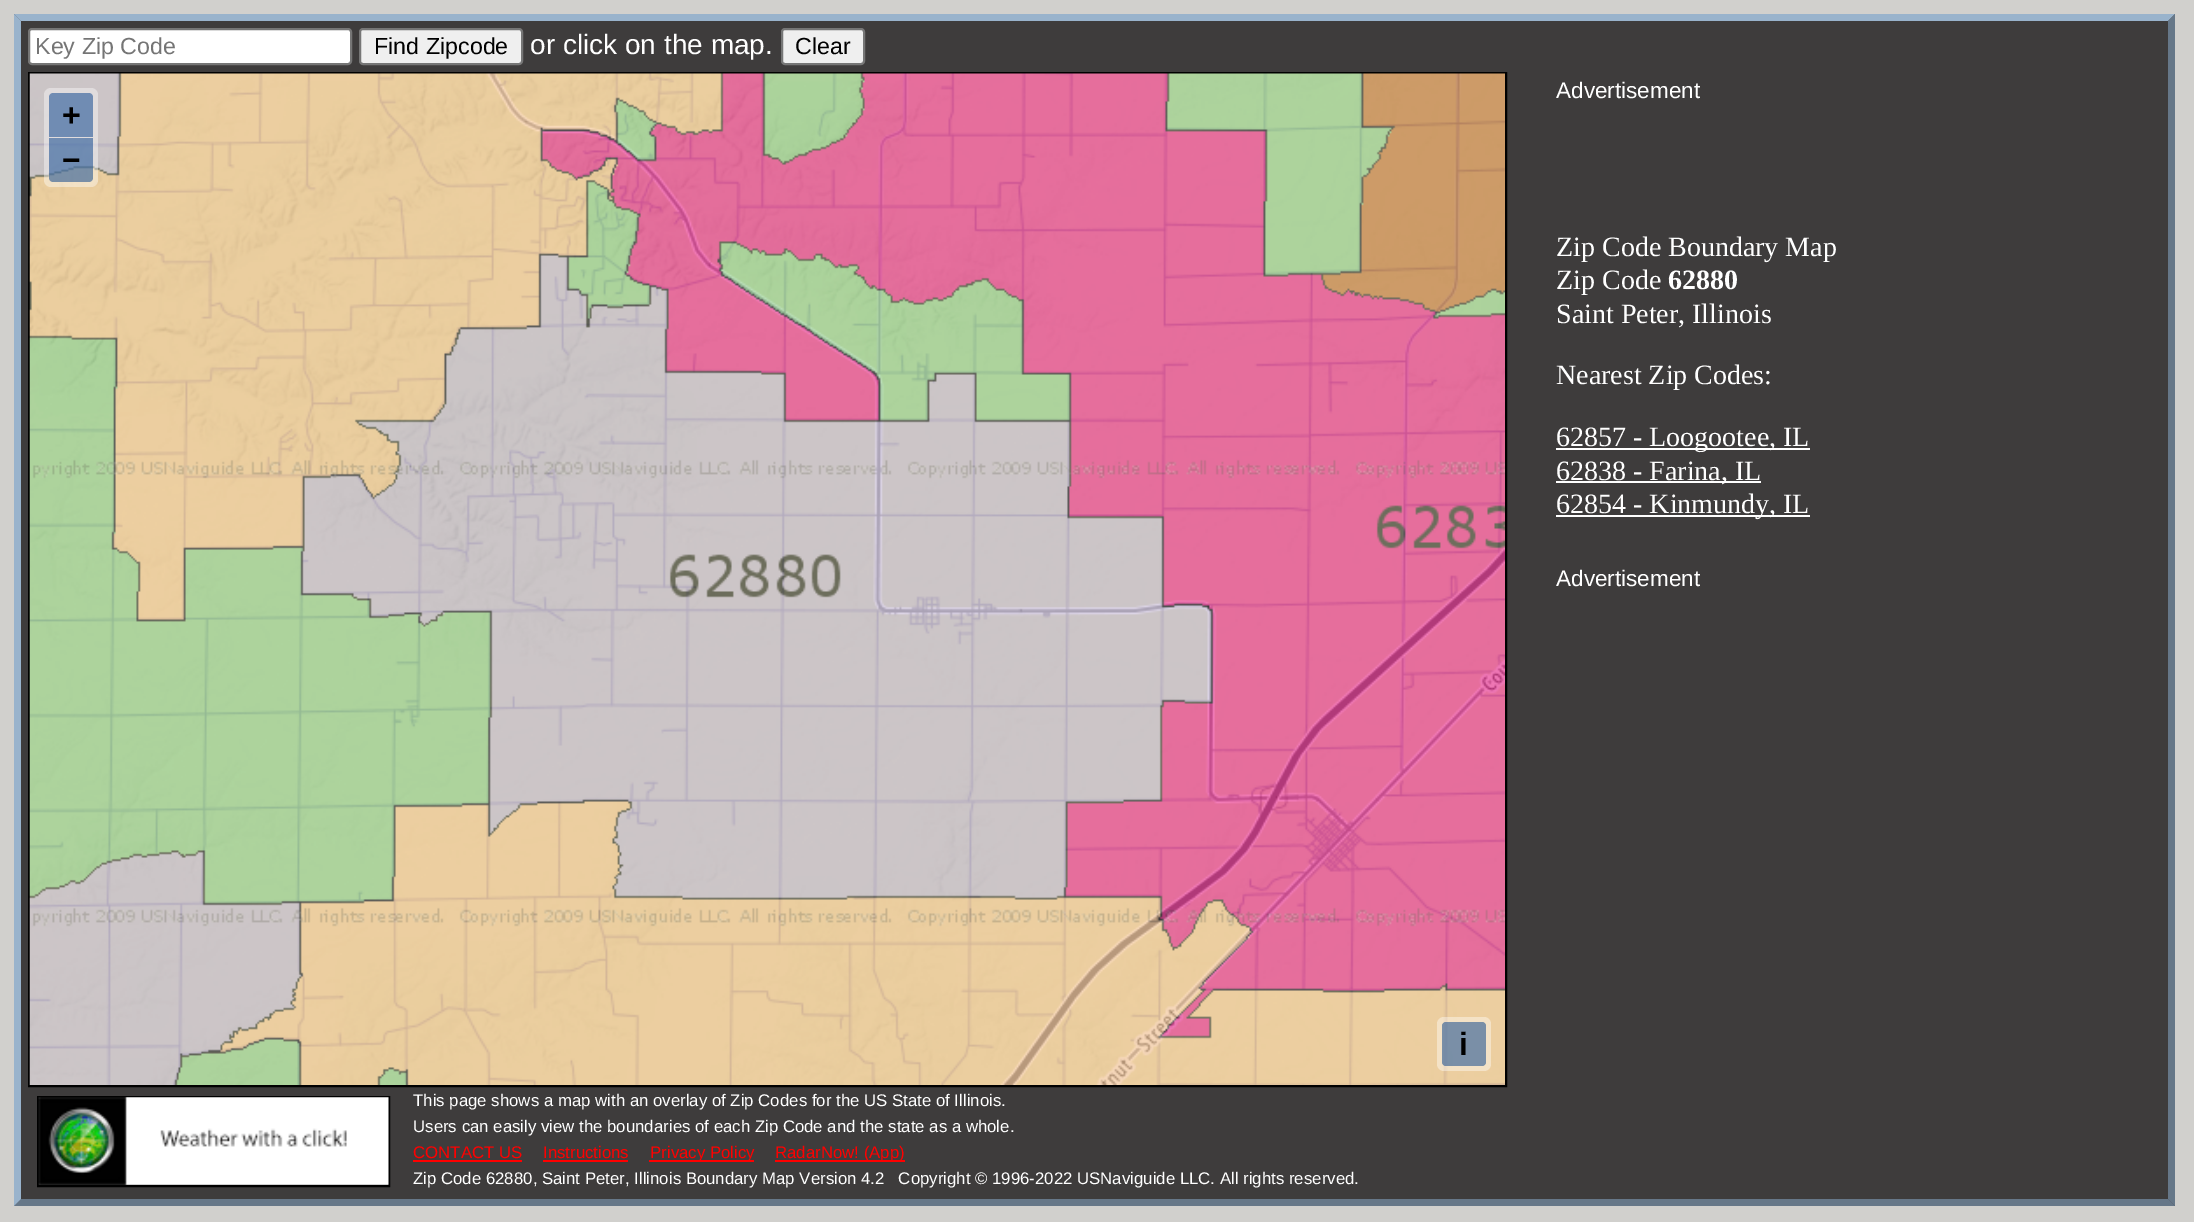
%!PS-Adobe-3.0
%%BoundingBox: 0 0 2194 1222
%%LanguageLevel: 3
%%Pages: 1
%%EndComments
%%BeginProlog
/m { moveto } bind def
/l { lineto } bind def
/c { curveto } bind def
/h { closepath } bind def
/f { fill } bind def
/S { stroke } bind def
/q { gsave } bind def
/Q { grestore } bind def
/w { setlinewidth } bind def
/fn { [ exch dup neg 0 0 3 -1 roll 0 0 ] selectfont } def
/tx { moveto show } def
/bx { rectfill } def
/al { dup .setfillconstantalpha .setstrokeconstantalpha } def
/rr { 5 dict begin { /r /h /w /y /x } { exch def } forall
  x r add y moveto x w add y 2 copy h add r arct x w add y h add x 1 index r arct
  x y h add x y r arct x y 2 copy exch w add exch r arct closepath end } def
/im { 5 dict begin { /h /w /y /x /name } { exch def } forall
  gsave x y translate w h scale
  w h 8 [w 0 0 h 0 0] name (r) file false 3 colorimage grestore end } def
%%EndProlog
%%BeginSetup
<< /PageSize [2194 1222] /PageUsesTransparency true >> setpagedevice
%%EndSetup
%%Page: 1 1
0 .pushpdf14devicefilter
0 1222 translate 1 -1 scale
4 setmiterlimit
0.82 0.816 0.804 setrgbcolor
0 0 2194 1222 bx
0.243 0.235 0.235 setrgbcolor
14 14 2161 1192 bx
0.6 0.702 0.8 setrgbcolor
14 14 m 2175 14 l 2168 21 l 21 21 l h f
0.4 0.467 0.533 setrgbcolor
2175 14 m 2175 1206 l 2168 1199 l 2168 21 l h f
2175 1206 m 14 1206 l 21 1199 l 2168 1199 l h f
0.6 0.702 0.8 setrgbcolor
14 1206 m 14 14 l 21 21 l 21 1199 l h f
1 setgray
29 29 322 35 3 rr q f Q
0.463 setgray
2 w
S
/LiberationSans-Regular 23.25 fn
0.459 setgray
(Key Zip Code) 35 54 tx
0.937 setgray
360 29 162 35 3 rr q f Q
0.463 setgray
S
0 setgray
(Find Zipcode) 374 54 tx
/LiberationSans-Regular 28 fn
1 setgray
(or click on the map.) 530 54 tx
0.937 setgray
782 29 82 35 3 rr q f Q
0.463 setgray
S
/LiberationSans-Regular 23.25 fn
0 setgray
(Clear) 795 54 tx
29 73 1477 1013 rectstroke
(image0.raw) 29 73 1476 1012 im
0.4 al
1 setgray
44 88 54 99 7 rr f
1 al
0.439 0.549 0.702 setrgbcolor
53 93 m 89 93 l 91 93 93 95 93 97 c 93 137 l 49 137 l 49 97 l 49 95 51 93 53 93 c h f
/LiberationSans-Bold 32 fn
0 setgray
(+) 62 126 tx
0.5 al
0 0.235 0.533 setrgbcolor
49 138 m 93 138 l 93 178 l 93 180 91 182 89 182 c 53 182 l 51 182 49 180 49 178 c h f
1 al
0 setgray
(−) 62 171 tx
0.4 al
1 setgray
1437 1017 54 54 7 rr f
0.5 al
0 0.235 0.533 setrgbcolor
1442 1022 44 44 4 rr f
1 al
0 setgray
(i) 1459 1055 tx
/LiberationSans-Regular 22.5 fn
1 setgray
(Advertisement) 1556 98 tx
/LiberationSerif-Regular 28 fn
(Zip Code Boundary Map) 1556 256 tx
(Zip Code) 1556 289 tx
/LiberationSerif-Bold 28 fn
(62880) 1668 289 tx
/LiberationSerif-Regular 28 fn
(Saint Peter, Illinois) 1556 323 tx
(Nearest Zip Codes:) 1556 384 tx
1556 448 254 2 bx
(62857 - Loogootee, IL) 1556 446 tx
1556 481 205 2 bx
(62838 - Farina, IL) 1556 480 tx
1556 515 254 2 bx
(62854 - Kinmundy, IL) 1556 513 tx
/LiberationSans-Regular 22.5 fn
(Advertisement) 1556 586 tx
0 setgray
38 1097 351 89 rectstroke
(image1.raw) 38 1097 351 88 im
/LiberationSans-Regular 16.8 fn
1 setgray
(This page shows a map with an overlay of Zip Codes for the US State of Illinois.) 413 1106 tx
(Users can easily view the boundaries of each Zip Code and the state as a whole.) 413 1132 tx
1 0 0 setrgbcolor
(CONTACT US) 413 1158 tx
413 1160 109 2 bx
(Instructions) 543 1158 tx
543 1160 85 2 bx
649 1160 105 2 bx
(Privacy Policy) 650 1158 tx
775 1160 130 2 bx
(RadarNow! \(App\)) 775 1158 tx
1 setgray
(Zip Code 62880, Saint Peter, Illinois Boundary Map Version 4.2   Copyright © 1996-2022 USNaviguide LLC. All rights reserved.) 413 1184 tx
.poppdf14devicefilter showpage
%%EOF
